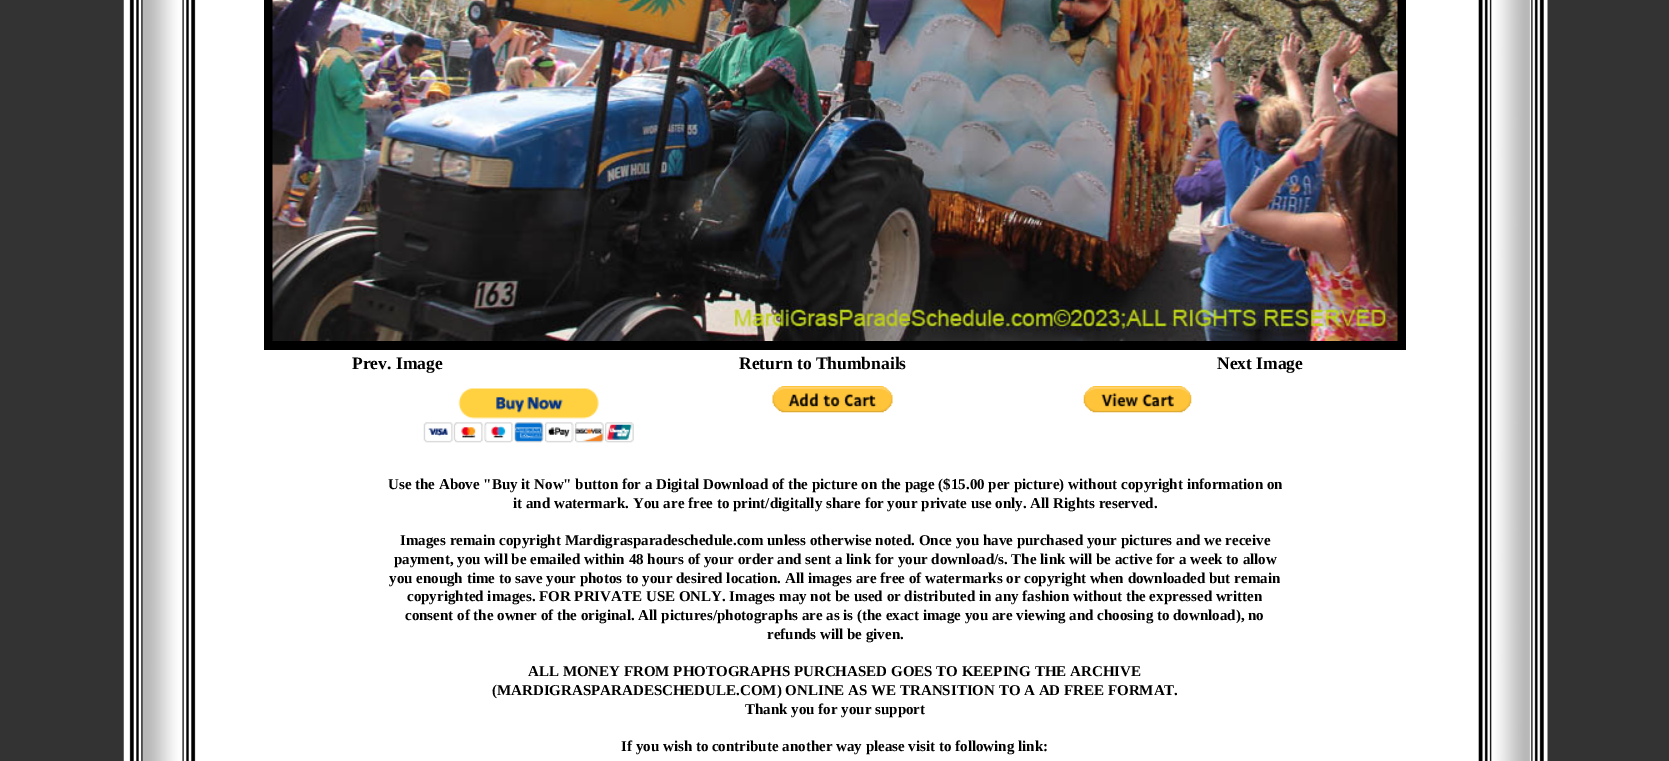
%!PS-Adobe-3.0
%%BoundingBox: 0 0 1669 761
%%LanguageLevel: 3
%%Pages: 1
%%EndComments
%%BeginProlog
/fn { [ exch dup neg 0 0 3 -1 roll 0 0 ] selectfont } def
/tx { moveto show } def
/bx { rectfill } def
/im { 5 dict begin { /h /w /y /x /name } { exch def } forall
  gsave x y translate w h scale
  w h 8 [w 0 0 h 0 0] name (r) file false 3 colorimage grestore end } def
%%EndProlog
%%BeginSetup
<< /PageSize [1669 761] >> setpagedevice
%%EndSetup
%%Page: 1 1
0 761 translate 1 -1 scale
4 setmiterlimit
0.2 setgray
0 0 1669 761 bx
(image0.raw) 123 0 1425 761 im
0 setgray
264 0 1142 350 bx
(image1.raw) 272 0 1126 341 im
/LiberationSerif-Bold 17.5 fn
(Prev. Image) 352 369 tx
(Return to Thumbnails) 739 369 tx
(Next Image) 1217 369 tx
(image2.raw) 423 388 211 55 im
(image3.raw) 772 386 121 27 im
(image4.raw) 1083 386 109 27 im
/LiberationSerif-Bold 15 fn
(Use the Above "Buy it Now" button for a Digital Download of the picture on the page \($15.00 per picture\) without copyright information on) 388 489 tx
(it and watermark. You are free to print/digitally share for your private use only. All Rights reserved.) 513 508 tx
(Images remain copyright Mardigrasparadeschedule.com unless otherwise noted. Once you have purchased your pictures and we receive) 400 545 tx
(payment, you will be emailed within 48 hours of your order and sent a link for your download/s. The link will be active for a week to allow) 394 564 tx
(you enough time to save your photos to your desired location. All images are free of watermarks or copyright when downloaded but remain) 389 583 tx
(copyrighted images. FOR PRIVATE USE ONLY. Images may not be used or distributed in any fashion without the expressed written) 407 601 tx
(consent of the owner of the original. All pictures/photographs are as is \(the exact image you are viewing and choosing to download\), no) 405 620 tx
(refunds will be given.) 767 639 tx
(ALL MONEY FROM PHOTOGRAPHS PURCHASED GOES TO KEEPING THE ARCHIVE) 528 676 tx
(\(MARDIGRASPARADESCHEDULE.COM\) ONLINE AS WE TRANSITION TO A AD FREE FORMAT.) 492 695 tx
(Thank you for your support) 745 714 tx
(If you wish to contribute another way please visit to following link:) 621 751 tx
showpage
%%EOF
